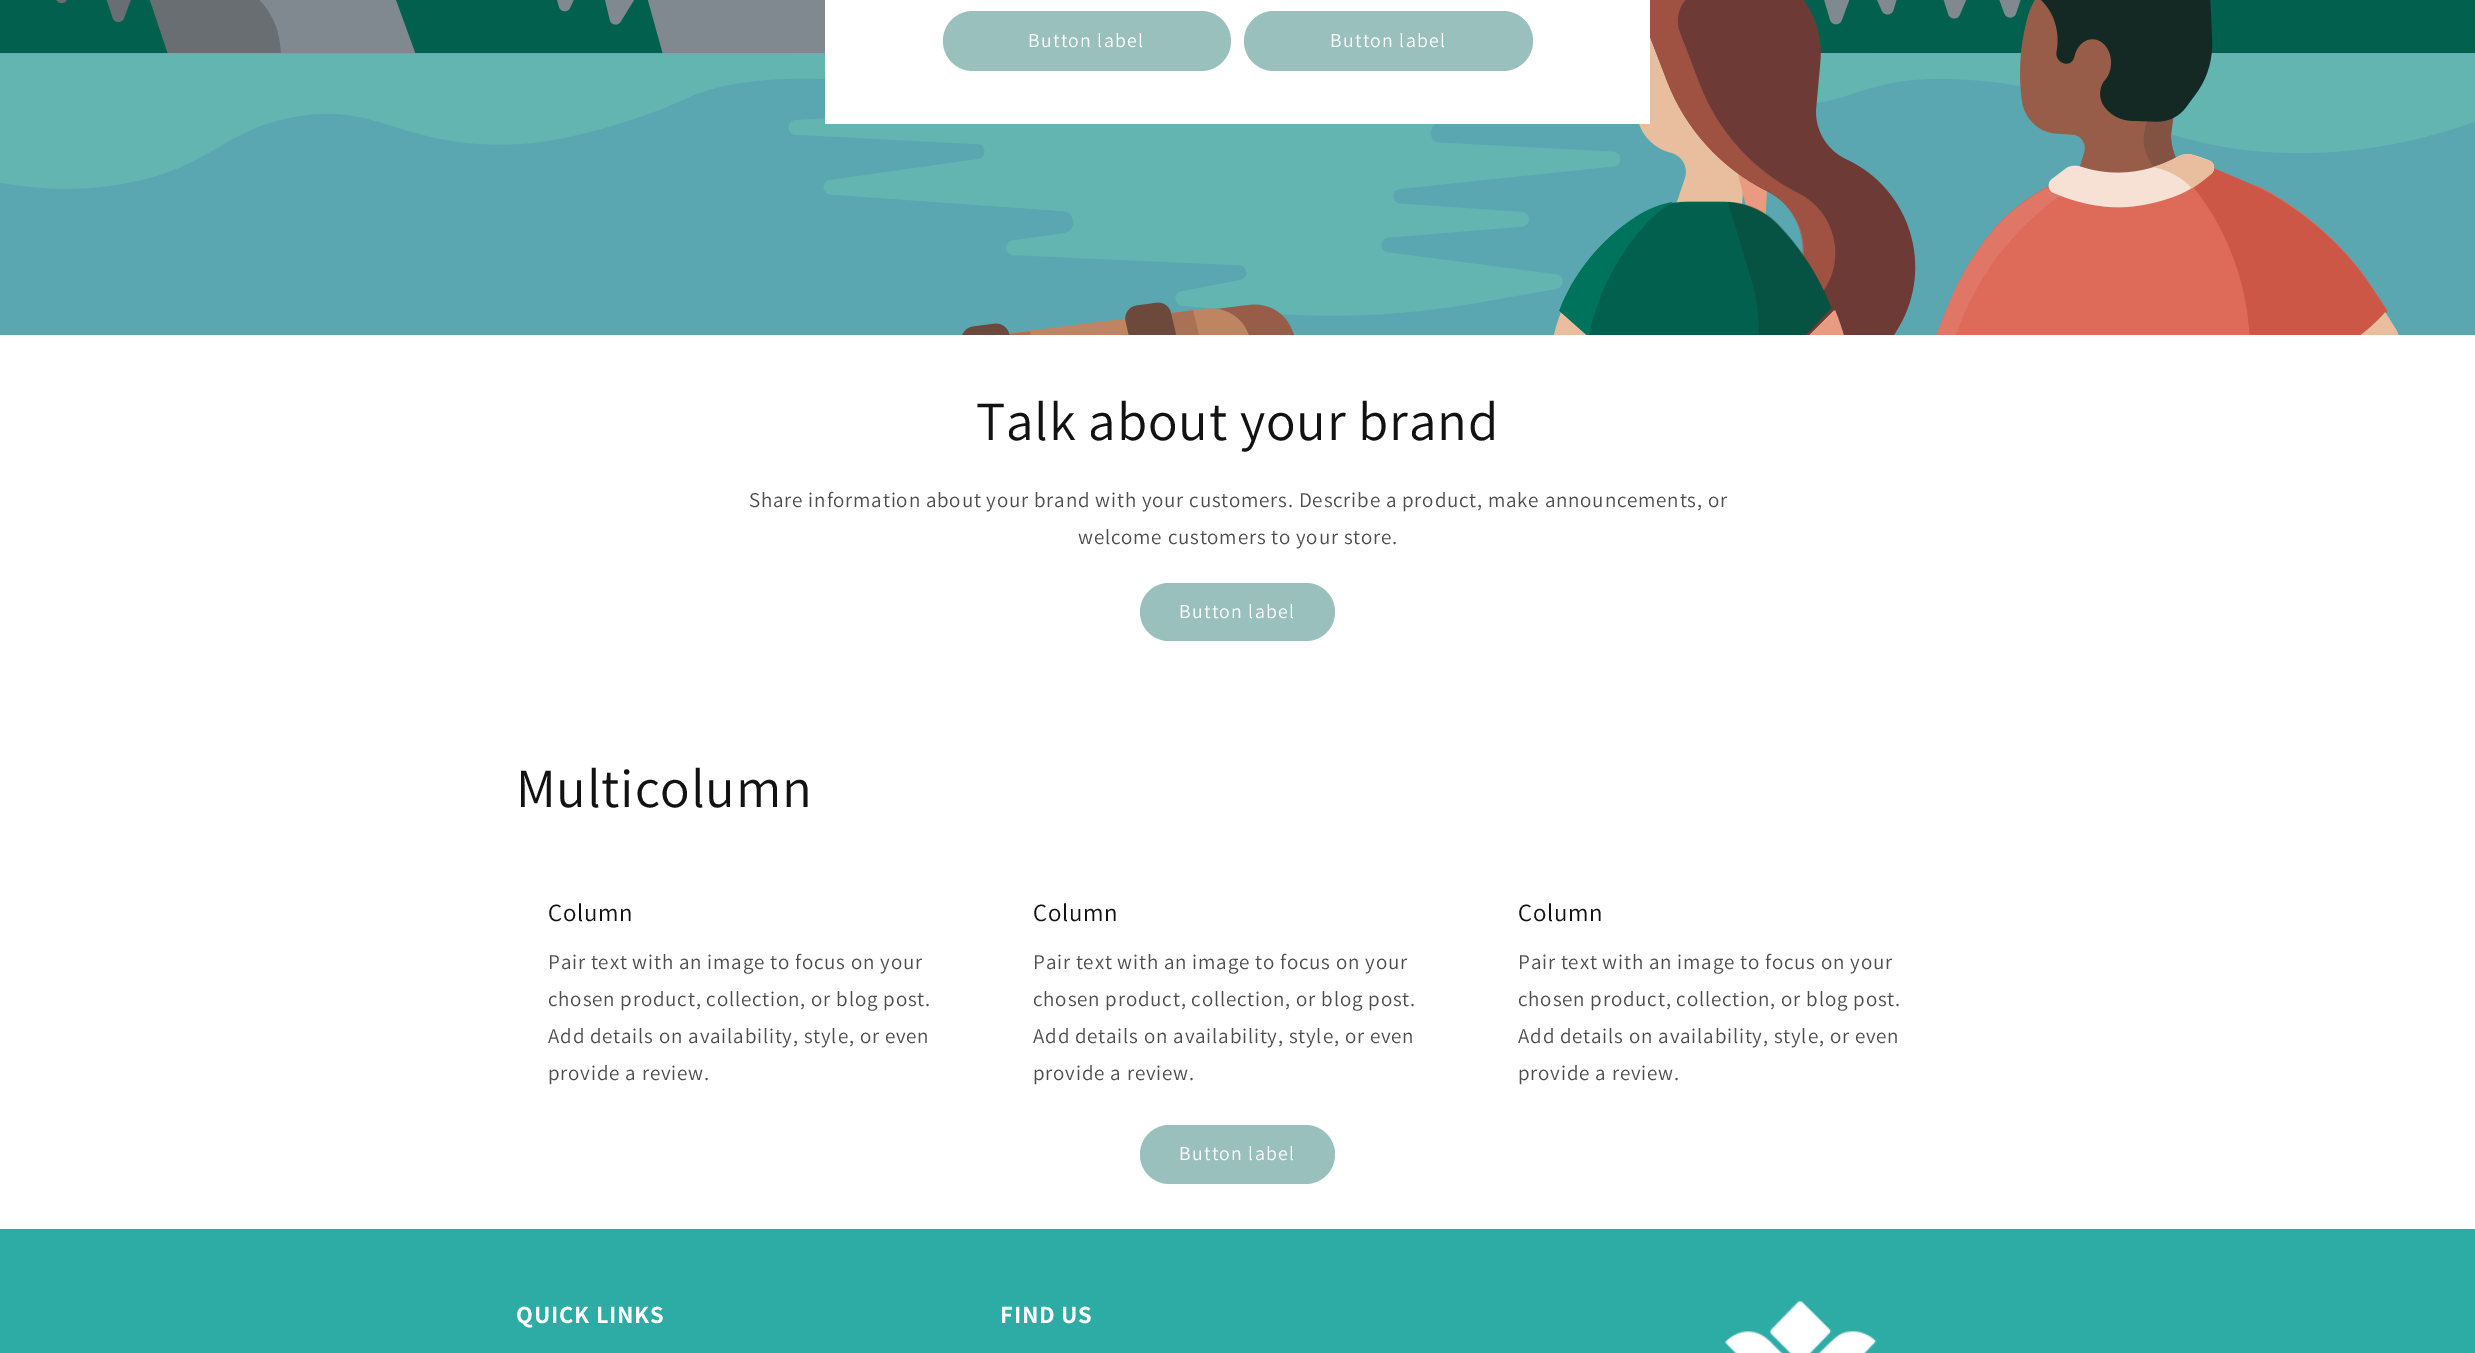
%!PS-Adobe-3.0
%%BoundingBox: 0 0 2475 1353
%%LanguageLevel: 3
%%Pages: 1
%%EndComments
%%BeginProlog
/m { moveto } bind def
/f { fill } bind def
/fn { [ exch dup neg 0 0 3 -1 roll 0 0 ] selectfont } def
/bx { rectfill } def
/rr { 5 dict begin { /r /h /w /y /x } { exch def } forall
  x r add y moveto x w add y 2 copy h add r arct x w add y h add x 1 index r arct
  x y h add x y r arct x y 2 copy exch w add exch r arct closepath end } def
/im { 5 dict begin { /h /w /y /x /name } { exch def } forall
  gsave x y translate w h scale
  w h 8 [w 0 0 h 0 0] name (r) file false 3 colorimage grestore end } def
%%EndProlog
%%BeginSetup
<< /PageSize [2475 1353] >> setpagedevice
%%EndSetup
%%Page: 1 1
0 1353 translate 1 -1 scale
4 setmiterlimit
1 setgray
0 0 2475 1353 bx
(image0.raw) 0 0 2475 335 im
825 0 825 124 bx
0.604 0.753 0.745 setrgbcolor
943 11 288 60 30 rr f
/Assistant-Regular 19.75 fn
1 setgray
1028 47 m 1.25 0 (Button label) ashow
0.604 0.753 0.745 setrgbcolor
1244 11 289 60 30 rr f
1 setgray
1330 47 m 1.25 0 (Button label) ashow
/Assistant-Regular 55 fn
0.071 setgray
976 440 m 0.8 0 (Talk about your brand) ashow
/Assistant-Regular 21 fn
0.302 setgray
749 507 m 0.8 0 (Share information about your brand with your customers. Describe a product, make announcements, or) ashow
1078 544 m 0.8 0 (welcome customers to your store.) ashow
0.604 0.753 0.745 setrgbcolor
1140 583 195 58 29 rr f
/Assistant-Regular 19.75 fn
1 setgray
1179 618 m 1.25 0 (Button label) ashow
/Assistant-Regular 55 fn
0.071 setgray
516 807 m 0.8 0 (Multicolumn) ashow
/Assistant-Regular 24.75 fn
548 921 m 0.8 0 (Column) ashow
/Assistant-Regular 21 fn
0.302 setgray
548 969 m 0.8 0 (Pair text with an image to focus on your) ashow
548 1006 m 0.8 0 (chosen product, collection, or blog post.) ashow
548 1043 m 0.8 0 (Add details on availability, style, or even) ashow
548 1080 m 0.8 0 (provide a review.) ashow
/Assistant-Regular 24.75 fn
0.071 setgray
1033 921 m 0.8 0 (Column) ashow
/Assistant-Regular 21 fn
0.302 setgray
1033 969 m 0.8 0 (Pair text with an image to focus on your) ashow
1033 1006 m 0.8 0 (chosen product, collection, or blog post.) ashow
1033 1043 m 0.8 0 (Add details on availability, style, or even) ashow
1033 1080 m 0.8 0 (provide a review.) ashow
/Assistant-Regular 24.75 fn
0.071 setgray
1518 921 m 0.8 0 (Column) ashow
/Assistant-Regular 21 fn
0.302 setgray
1518 969 m 0.8 0 (Pair text with an image to focus on your) ashow
1518 1006 m 0.8 0 (chosen product, collection, or blog post.) ashow
1518 1043 m 0.8 0 (Add details on availability, style, or even) ashow
1518 1080 m 0.8 0 (provide a review.) ashow
0.604 0.753 0.745 setrgbcolor
1140 1125 195 59 29.5 rr f
/Assistant-Regular 19.75 fn
1 setgray
1179 1160 m 1.25 0 (Button label) ashow
0.176 0.671 0.647 setrgbcolor
0 1229 2475 124 bx
/Assistant-Bold 24.75 fn
1 setgray
516 1323 m 0.8 0 (QUICK LINKS) ashow
1000 1323 m 0.8 0 (FIND US) ashow
(image1.raw) 1724 1301 153 52 im
showpage
%%EOF
